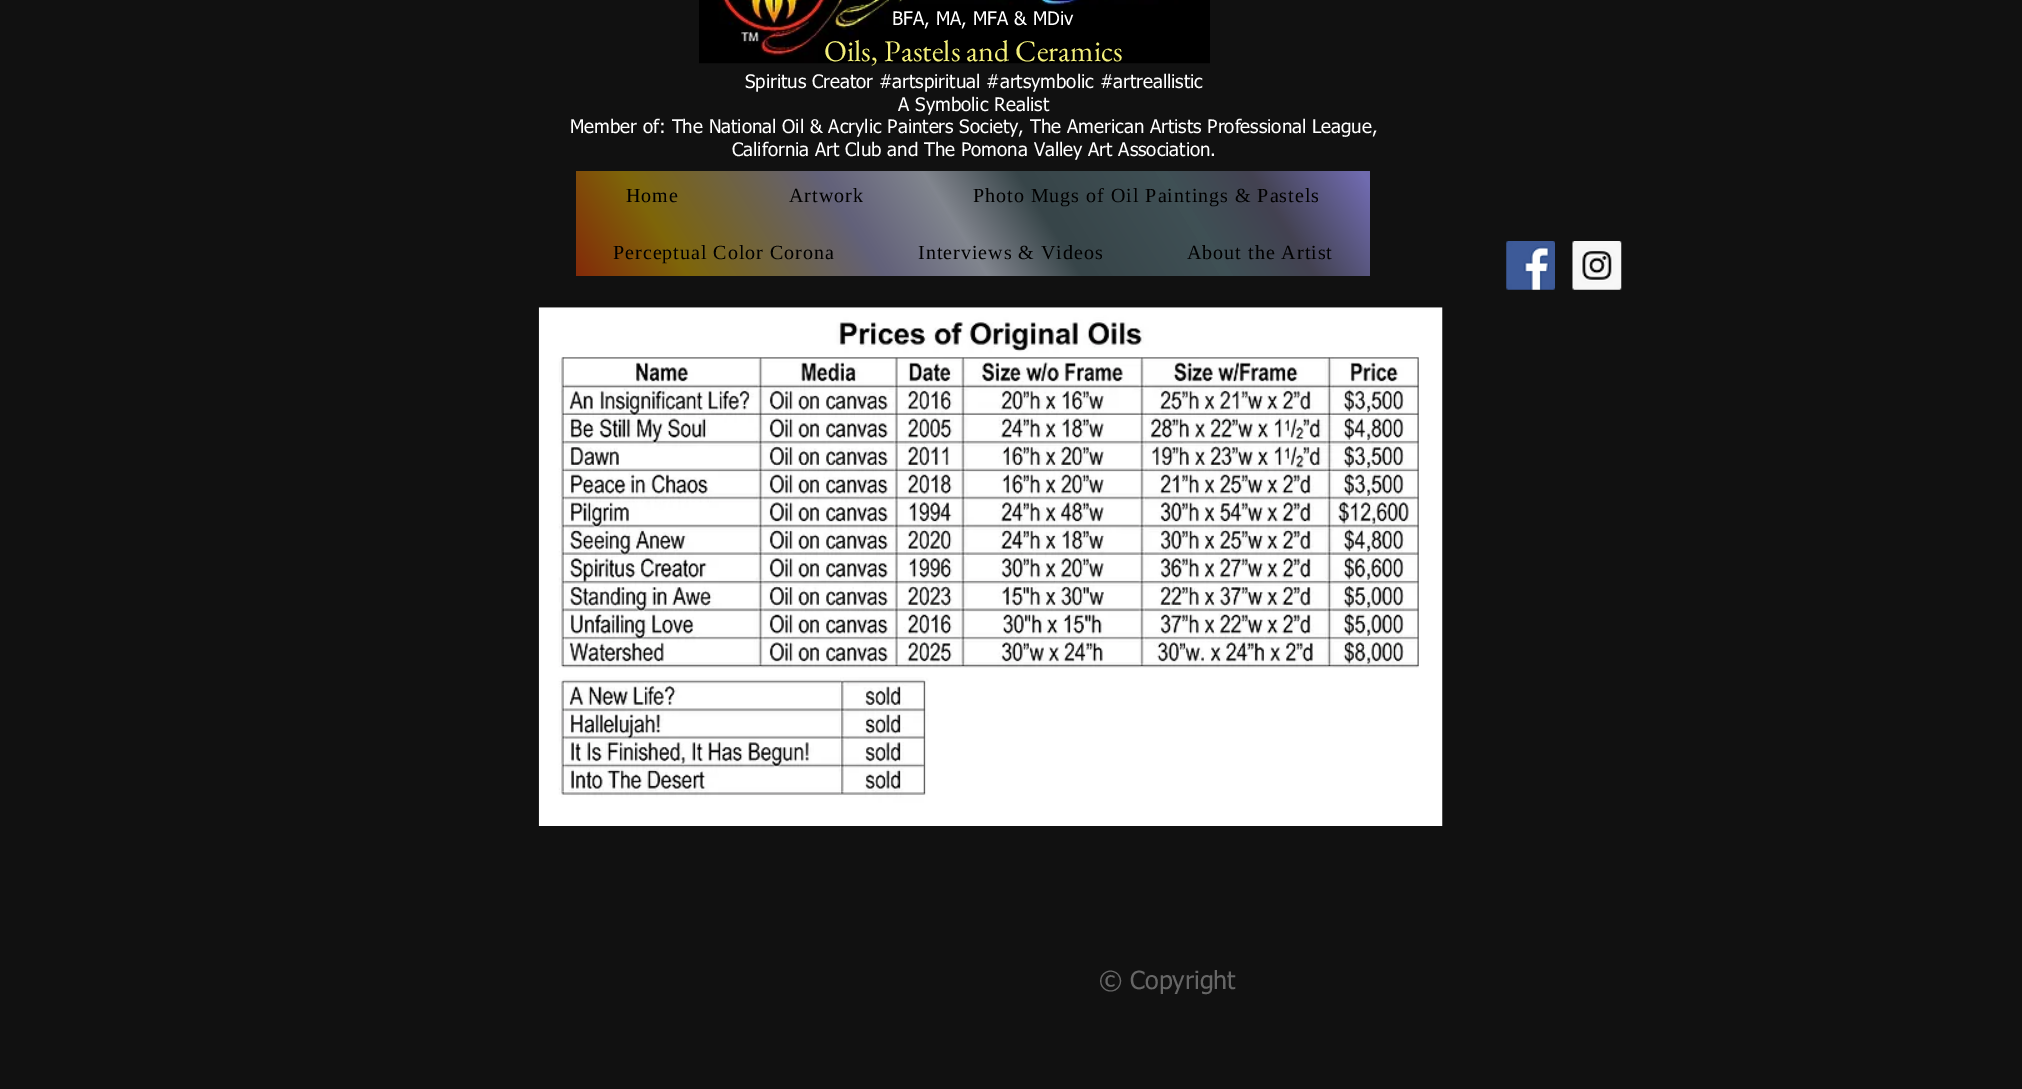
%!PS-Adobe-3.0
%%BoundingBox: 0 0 2022 1089
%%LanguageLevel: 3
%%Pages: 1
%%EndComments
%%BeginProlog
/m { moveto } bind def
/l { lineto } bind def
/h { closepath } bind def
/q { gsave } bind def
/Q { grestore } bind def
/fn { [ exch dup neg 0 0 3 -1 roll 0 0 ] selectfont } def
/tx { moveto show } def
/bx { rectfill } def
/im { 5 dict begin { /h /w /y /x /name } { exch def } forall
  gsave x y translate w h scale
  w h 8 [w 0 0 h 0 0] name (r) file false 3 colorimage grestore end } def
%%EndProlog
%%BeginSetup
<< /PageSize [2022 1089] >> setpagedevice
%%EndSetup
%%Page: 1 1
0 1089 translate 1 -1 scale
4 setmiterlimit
0.067 setgray
0 0 2022 1089 bx
(image0.raw) 699 0 511 64 im
/tahoma-Regular 18.75 fn
1 setgray
(BFA, MA, MFA & MDiv) 892 25 tx
/EBGaramond-Regular 30 fn
0.953 0.937 0.478 setrgbcolor
(Oils, Pastels and Ceramics) 824 61 tx
/tahoma-Regular 18.75 fn
1 setgray
(Spiritus Creator #artspiritual #artsymbolic #artreallistic) 745 88 tx
(A Symbolic Realist) 898 111 tx
(Member of: The National Oil & Acrylic Painters Society, The American Artists Professional League,) 570 133 tx
(California Art Club and The Pomona Valley Art Association.) 732 156 tx
q 576 171 m 1370 171 l 1370 276 l 576 276 l h clip newpath
<< /ShadingType 2 /ColorSpace /DeviceRGB /Coords [664 417 1282 31] /Extend [true true] /Function << /FunctionType 3 /Domain [0 1] /Functions [<< /FunctionType 2 /Domain [0 1] /C0 [0.514 0.165 0.035] /C1 [0.494 0.396 0.035] /N 1 >> << /FunctionType 2 /Domain [0 1] /C0 [0.494 0.396 0.035] /C1 [0.384 0.38 0.478] /N 1 >> << /FunctionType 2 /Domain [0 1] /C0 [0.384 0.38 0.478] /C1 [0.506 0.522 0.557] /N 1 >> << /FunctionType 2 /Domain [0 1] /C0 [0.506 0.522 0.557] /C1 [0.216 0.271 0.286] /N 1 >> << /FunctionType 2 /Domain [0 1] /C0 [0.216 0.271 0.286] /C1 [0.247 0.314 0.333] /N 1 >> << /FunctionType 2 /Domain [0 1] /C0 [0.247 0.314 0.333] /C1 [0.263 0.259 0.318] /N 1 >> << /FunctionType 2 /Domain [0 1] /C0 [0.263 0.259 0.318] /C1 [0.439 0.42 0.686] /N 1 >> << /FunctionType 2 /Domain [0 1] /C0 [0.439 0.42 0.686] /C1 [0.439 0.42 0.686] /N 1 >>] /Bounds [0.13 0.36 0.48 0.59 0.76 0.86 0.99] /Encode [0 1 0 1 0 1 0 1 0 1 0 1 0 1 0 1] >> >> shfill Q
/LiberationSerif-Regular 20 fn
0 setgray
626 202 m 1 0 (Home) ashow
789 202 m 1 0 (Artwork) ashow
973 202 m 1 0 (Photo Mugs of Oil Paintings & Pastels) ashow
613 259 m 1 0 (Perceptual Color Corona) ashow
918 259 m 1 0 (Interviews & Videos) ashow
1187 259 m 1 0 (About the Artist) ashow
(image1.raw) 1506 241 49 49 im
(image2.raw) 1572 241 50 49 im
(image3.raw) 538 307 905 519 im
/tahoma-Regular 25 fn
0.4 setgray
(© Copyright) 1099 989 tx
showpage
%%EOF
